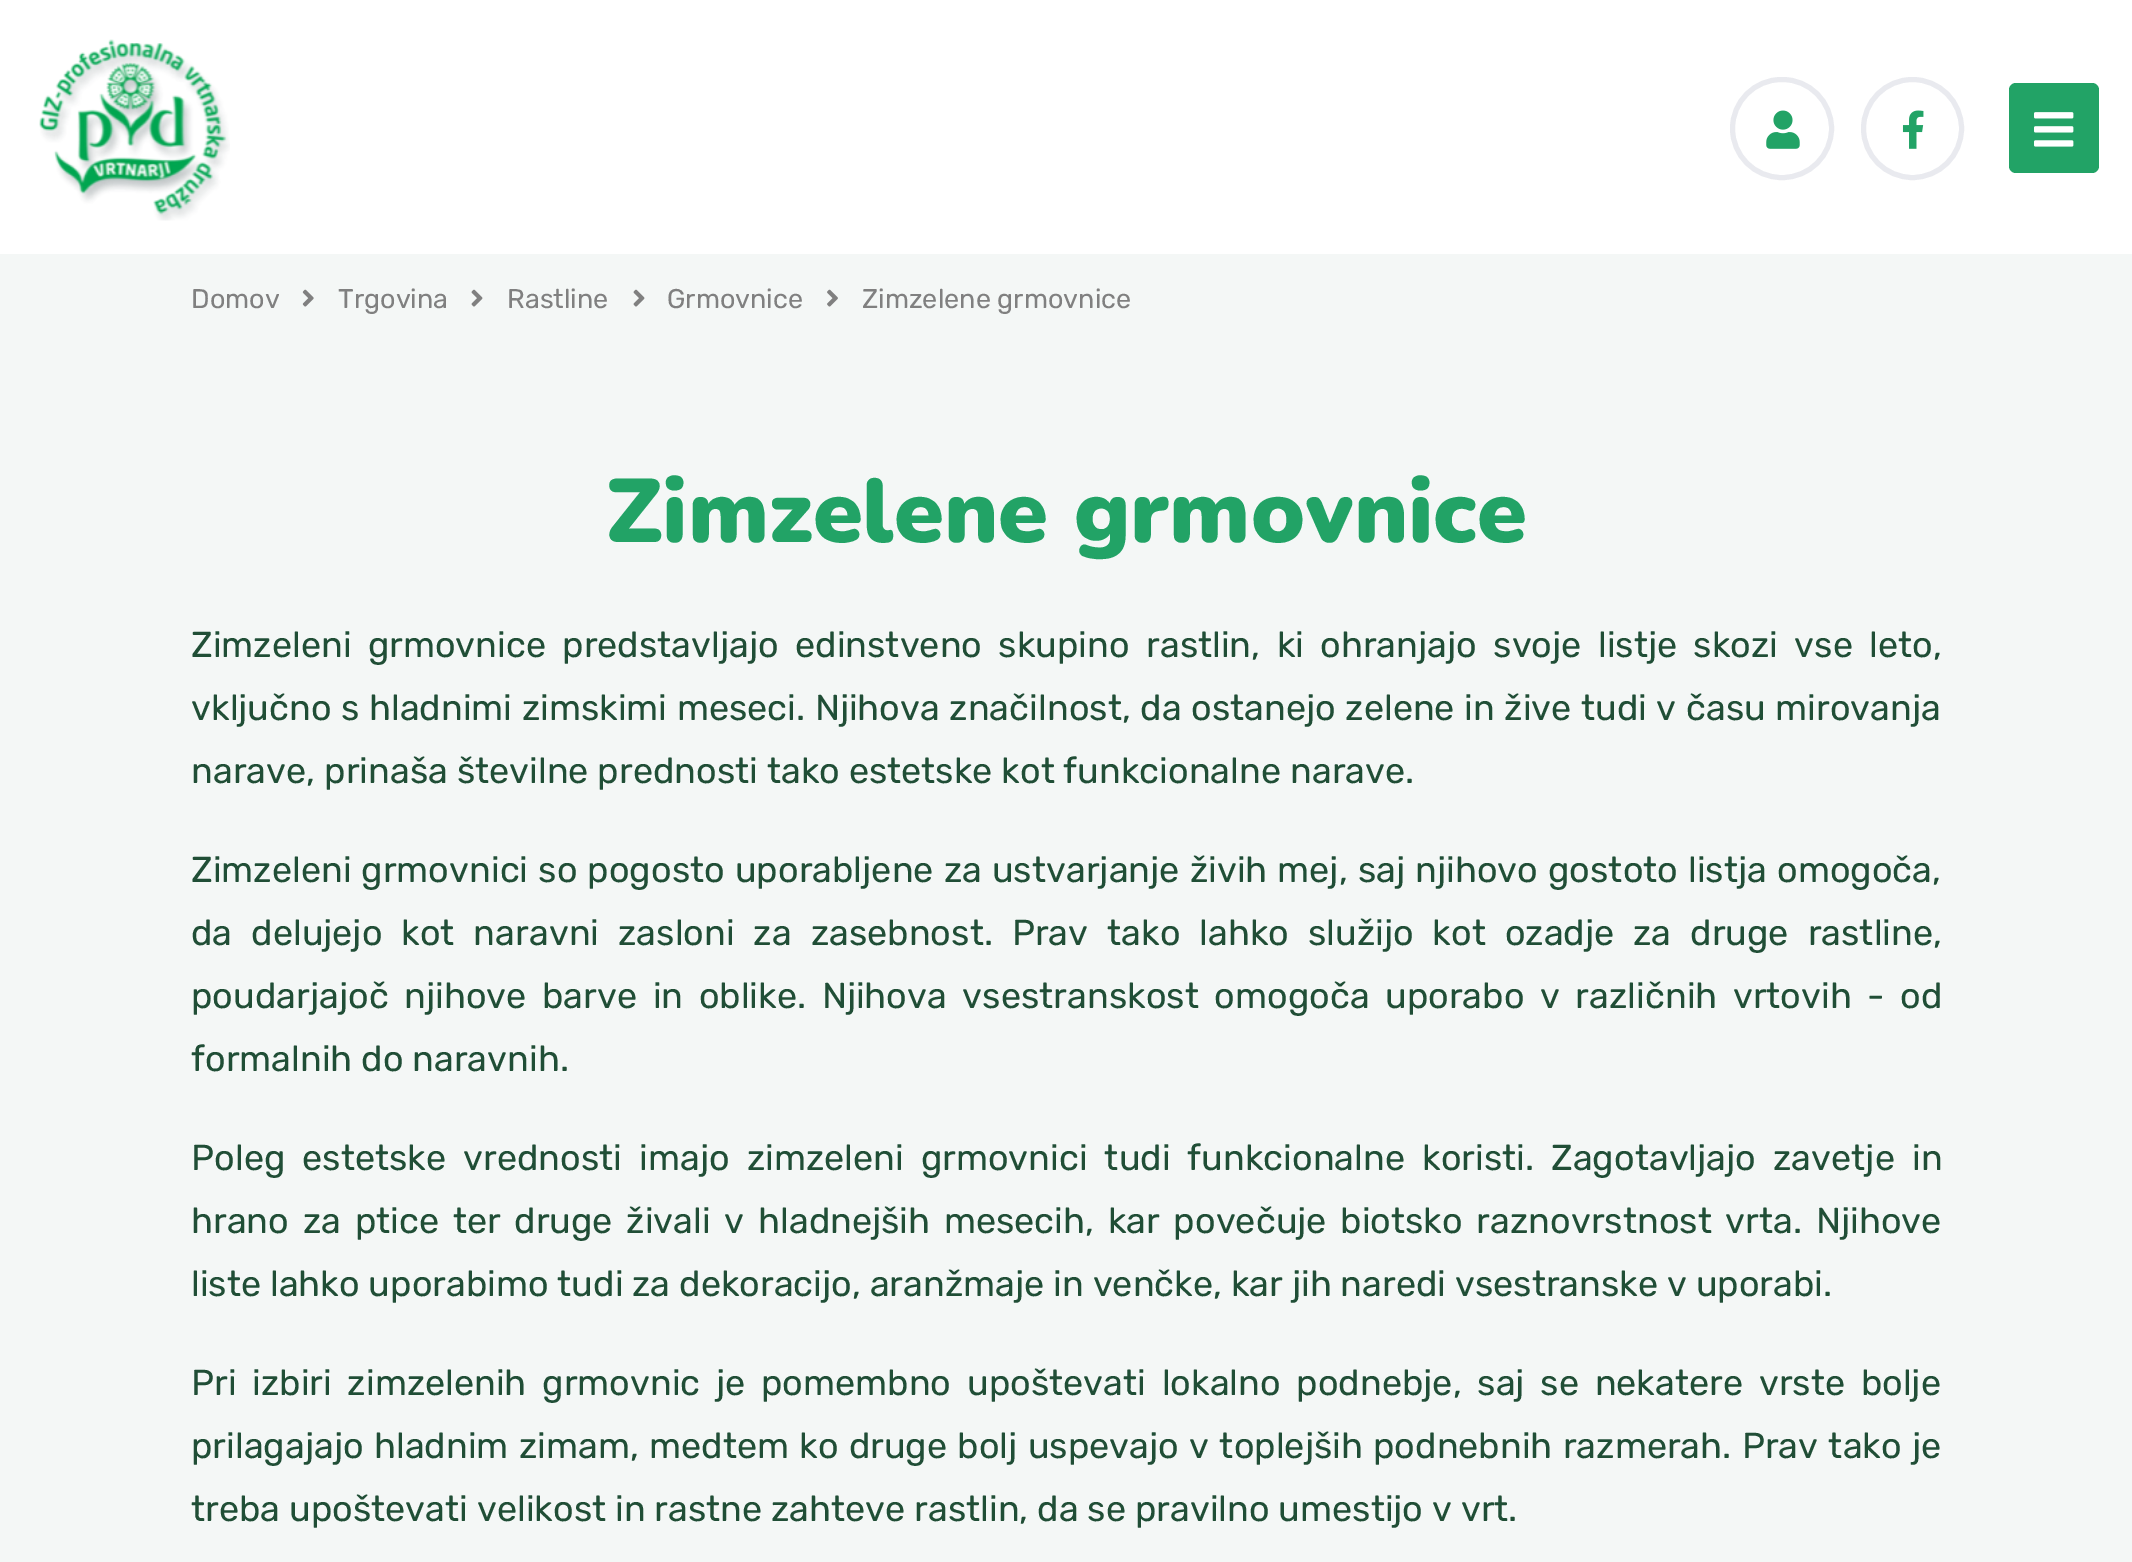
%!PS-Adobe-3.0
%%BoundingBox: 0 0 2132 1562
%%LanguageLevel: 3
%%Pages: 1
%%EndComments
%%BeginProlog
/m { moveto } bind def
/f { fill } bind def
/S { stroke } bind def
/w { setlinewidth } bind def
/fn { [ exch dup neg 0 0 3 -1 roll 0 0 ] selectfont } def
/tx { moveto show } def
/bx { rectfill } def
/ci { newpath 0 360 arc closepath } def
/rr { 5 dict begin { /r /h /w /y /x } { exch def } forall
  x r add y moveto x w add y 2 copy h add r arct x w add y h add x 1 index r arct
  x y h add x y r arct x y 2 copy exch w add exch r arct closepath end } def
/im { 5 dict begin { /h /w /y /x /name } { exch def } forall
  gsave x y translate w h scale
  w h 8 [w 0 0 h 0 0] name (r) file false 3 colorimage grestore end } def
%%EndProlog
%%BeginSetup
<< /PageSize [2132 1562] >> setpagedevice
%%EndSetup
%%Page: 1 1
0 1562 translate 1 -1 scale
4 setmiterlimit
0.957 0.969 0.965 setrgbcolor
0 0 2132 1562 bx
1 setgray
0 0 2132 254 bx
(image0.raw) 39 39 191 182 im
0.914 0.918 0.937 setrgbcolor
5 w
1732.5 79.5 99 98 49 rr S
(image1.raw) 1766 110 34 39 im
1912.5 128.5 49 ci S
(image2.raw) 1902 110 22 39 im
0.133 0.639 0.4 setrgbcolor
2009 83 90 90 7 rr f
(image3.raw) 2034 112 40 35 im
/Rubik-Regular 27 fn
0.502 setgray
(Domov) 191 308 tx
(image4.raw) 302 289 12 18 im
(Trgovina) 338 308 tx
(image5.raw) 471 289 12 18 im
(Rastline) 507 308 tx
(image5.raw) 633 289 12 18 im
(Grmovnice) 667 308 tx
(image6.raw) 827 289 11 18 im
(Zimzelene grmovnice) 862 308 tx
/Nunito-Black 90 fn
0.133 0.639 0.4 setrgbcolor
(Zimzelene grmovnice) 606 542 tx
/Rubik-Regular 36 fn
0.125 0.306 0.212 setrgbcolor
191 657 m 7.5 0 32 (Zimzeleni grmovnice predstavljajo edinstveno skupino rastlin, ki ohranjajo svoje listje skozi vse leto,) widthshow
191 720 m 0.75 0 32 (vključno s hladnimi zimskimi meseci. Njihova značilnost, da ostanejo zelene in žive tudi v času mirovanja) widthshow
(narave, prinaša številne prednosti tako estetske kot funkcionalne narave.) 191 783 tx
191 882 m 1.25 0 32 (Zimzeleni grmovnici so pogosto uporabljene za ustvarjanje živih mej, saj njihovo gostoto listja omogoča,) widthshow
191 945 m 10.1 0 32 (da delujejo kot naravni zasloni za zasebnost. Prav tako lahko služijo kot ozadje za druge rastline,) widthshow
191 1008 m 6.75 0 32 (poudarjajoč njihove barve in oblike. Njihova vsestranskost omogoča uporabo v različnih vrtovih - od) widthshow
(formalnih do naravnih.) 191 1071 tx
191 1170 m 8.25 0 32 (Poleg estetske vrednosti imajo zimzeleni grmovnici tudi funkcionalne koristi. Zagotavljajo zavetje in) widthshow
191 1233 m 4.9 0 32 (hrano za ptice ter druge živali v hladnejših mesecih, kar povečuje biotsko raznovrstnost vrta. Njihove) widthshow
(liste lahko uporabimo tudi za dekoracijo, aranžmaje in venčke, kar jih naredi vsestranske v uporabi.) 191 1296 tx
191 1395 m 6.9 0 32 (Pri izbiri zimzelenih grmovnic je pomembno upoštevati lokalno podnebje, saj se nekatere vrste bolje) widthshow
191 1458 m 1.5 0 32 (prilagajajo hladnim zimam, medtem ko druge bolj uspevajo v toplejših podnebnih razmerah. Prav tako je) widthshow
(treba upoštevati velikost in rastne zahteve rastlin, da se pravilno umestijo v vrt.) 191 1521 tx
showpage
%%EOF
